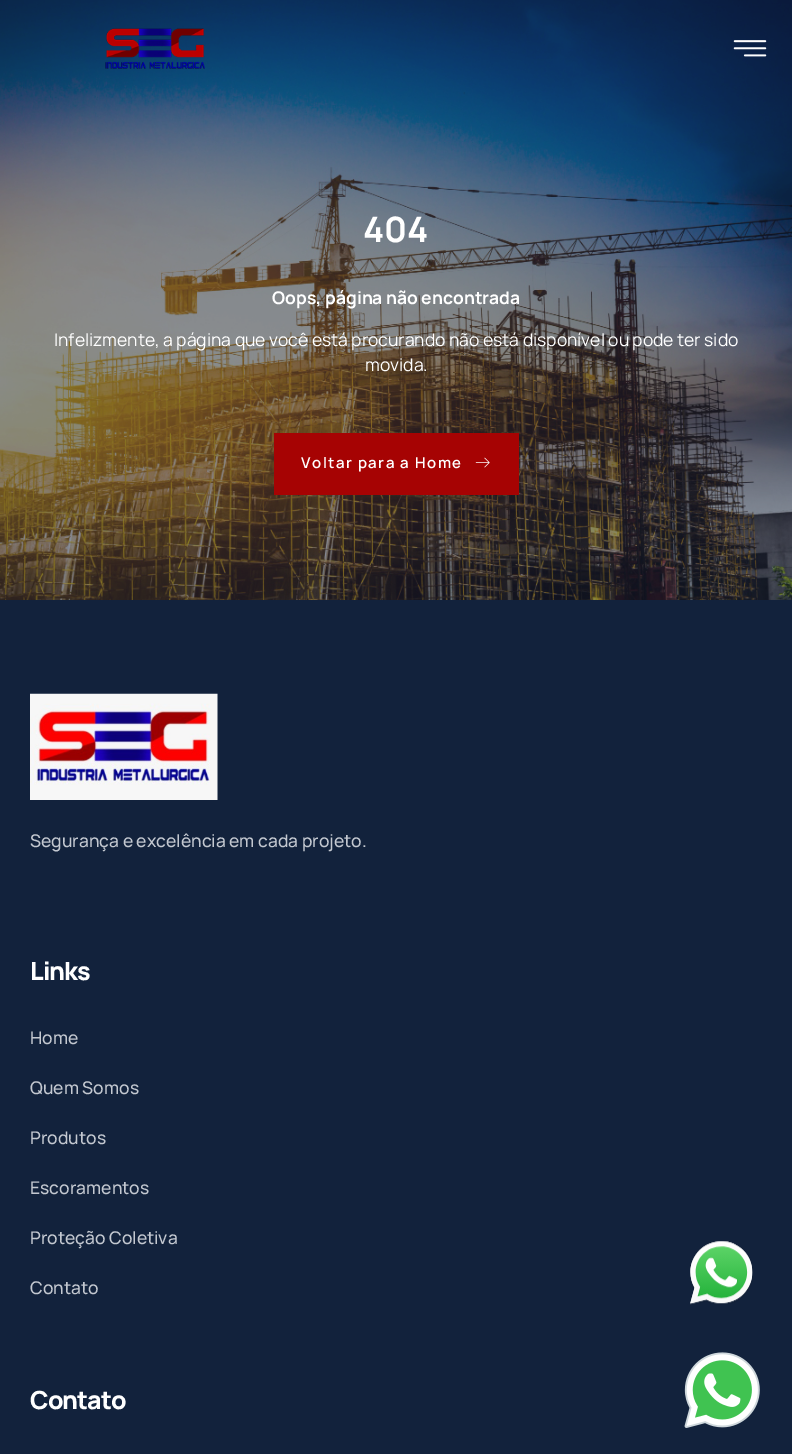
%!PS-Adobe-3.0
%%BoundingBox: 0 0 792 1454
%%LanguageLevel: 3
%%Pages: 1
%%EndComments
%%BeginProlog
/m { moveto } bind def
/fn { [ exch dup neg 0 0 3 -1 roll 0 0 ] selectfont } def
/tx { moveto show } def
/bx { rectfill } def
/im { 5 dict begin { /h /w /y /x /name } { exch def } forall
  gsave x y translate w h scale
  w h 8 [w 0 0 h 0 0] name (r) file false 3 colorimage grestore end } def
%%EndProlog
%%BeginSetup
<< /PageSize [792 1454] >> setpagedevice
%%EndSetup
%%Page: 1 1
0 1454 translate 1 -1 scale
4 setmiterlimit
0.071 0.133 0.235 setrgbcolor
0 0 792 1454 bx
(image3.raw) 0 0 792 600 im
(image0.raw) 105 28 100 41 im
(image1.raw) 733 40 34 17 im
(image2.raw) 690 1241 63 64 im
/Manrope-Bold 35 fn
1 setgray
(404) 363 242 tx
/Manrope-Bold 17.5 fn
(Oops, página não encontrada) 272 304 tx
/Manrope-Regular 17.5 fn
(Infelizmente, a página que você está procurando não está disponível ou pode ter sido) 54 346 tx
(movida.) 365 371 tx
0.651 0.012 0.012 setrgbcolor
274 433 245 62 bx
/Manrope-SemiBold 15 fn
1 setgray
301 468 m 1.5 0 (Voltar para a Home) ashow
(image4.raw) 475 457 15 11 im
(image5.raw) 30 693 188 107 im
/Manrope-Medium 17.5 fn
0.765 0.784 0.816 setrgbcolor
(Segurança e excelência em cada projeto.) 30 847 tx
/Manrope-ExtraBold 25 fn
1 setgray
30 980 m -1 0 (Links) ashow
/Manrope-Medium 17.5 fn
0.765 0.784 0.816 setrgbcolor
(Home) 30 1044 tx
(Quem Somos) 30 1094 tx
(Produtos) 30 1144 tx
(Escoramentos) 30 1194 tx
(Proteção Coletiva) 30 1244 tx
(Contato) 30 1294 tx
/Manrope-ExtraBold 25 fn
1 setgray
30 1409 m -1 0 (Contato) ashow
(image6.raw) 684 1352 76 76 im
showpage
%%EOF
